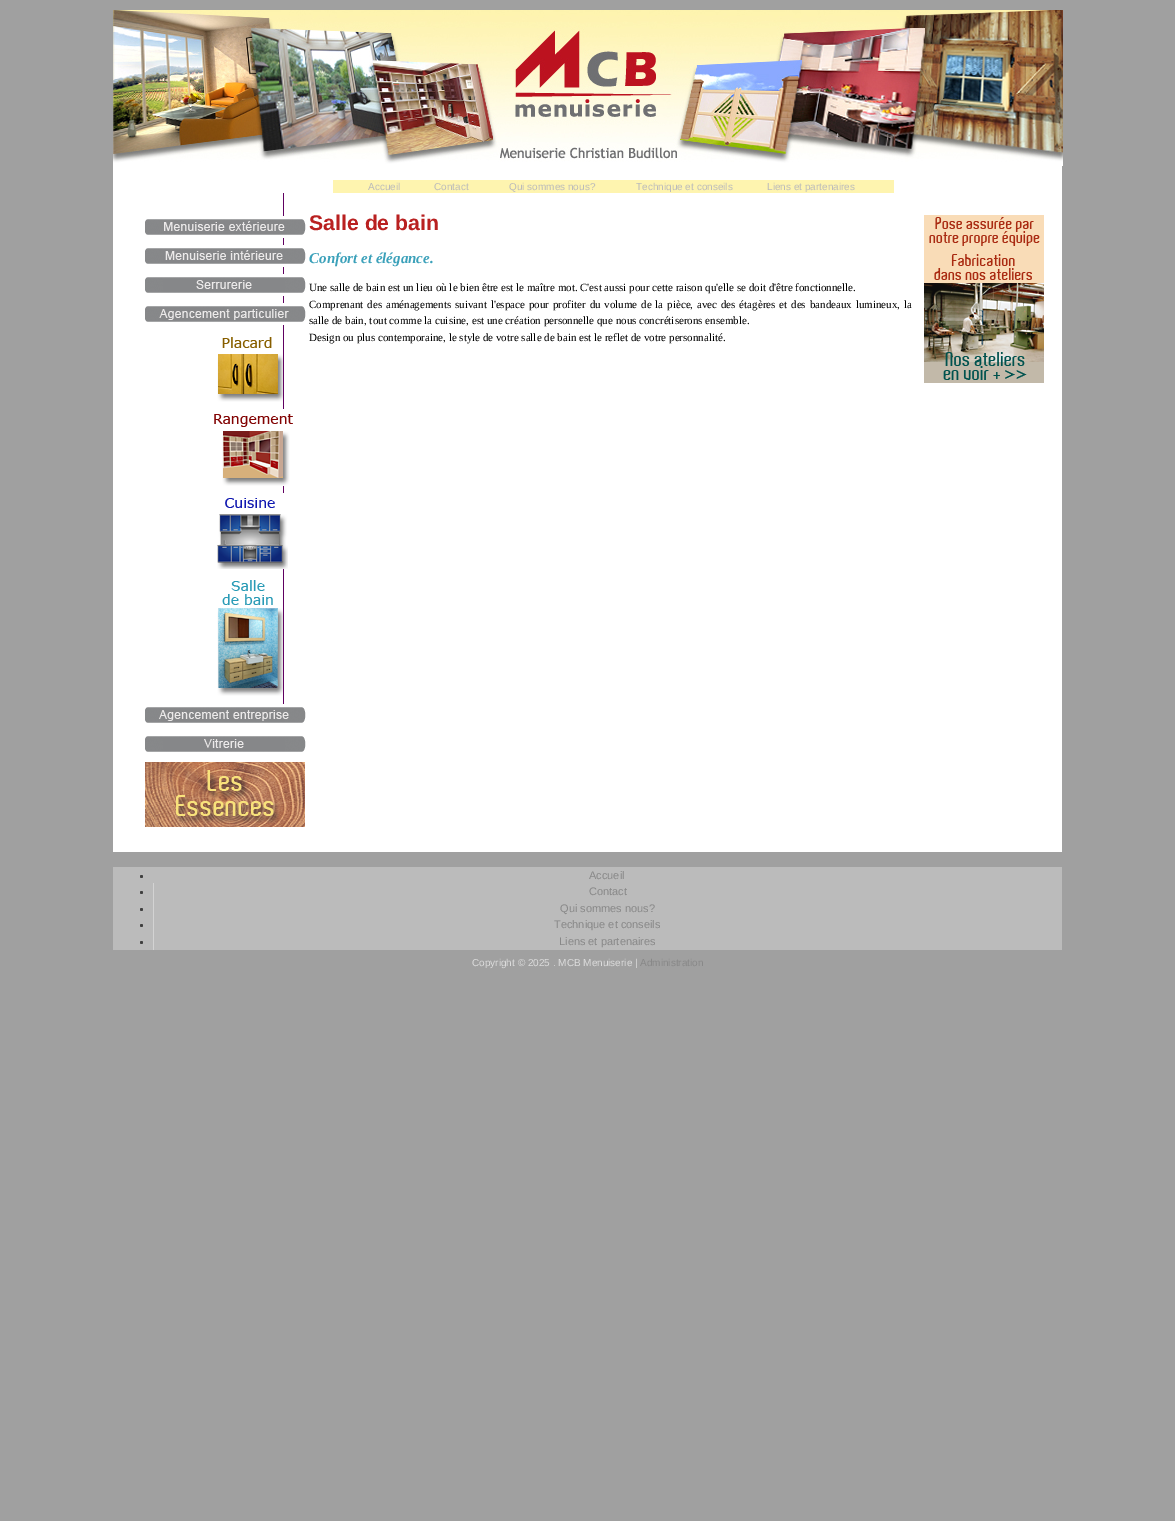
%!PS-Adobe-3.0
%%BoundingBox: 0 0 1175 1521
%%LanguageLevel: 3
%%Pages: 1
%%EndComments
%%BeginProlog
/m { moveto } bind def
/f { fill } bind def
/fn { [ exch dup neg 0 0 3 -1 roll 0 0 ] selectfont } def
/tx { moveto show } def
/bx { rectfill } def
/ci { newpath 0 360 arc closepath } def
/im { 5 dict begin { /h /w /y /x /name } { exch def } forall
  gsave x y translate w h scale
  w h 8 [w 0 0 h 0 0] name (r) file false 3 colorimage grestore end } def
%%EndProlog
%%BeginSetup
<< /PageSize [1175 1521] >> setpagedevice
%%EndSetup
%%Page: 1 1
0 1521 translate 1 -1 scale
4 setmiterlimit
0.627 setgray
0 0 1175 1521 bx
(image0.raw) 113 10 950 156 im
1 setgray
113 166 949 686 bx
0.996 0.957 0.686 setrgbcolor
333 180 561 13 bx
/LiberationSans-Regular 10 fn
0.733 setgray
(Accueil) 368 190 tx
(Contact) 434 190 tx
(Qui sommes nous?) 509 190 tx
(Technique et conseils) 636 190 tx
(Liens et partenaires) 767 190 tx
0.376 0 0.38 setrgbcolor
283 193 1 511 bx
(image1.raw) 145 216 161 22 im
(image2.raw) 145 245 161 22 im
(image3.raw) 145 274 161 22 im
(image4.raw) 145 303 161 22 im
(image5.raw) 217 337 66 65 im
(image6.raw) 214 409 79 77 im
(image7.raw) 217 493 71 76 im
(image8.raw) 217 580 66 116 im
(image9.raw) 145 704 161 19 im
(image10.raw) 145 736 161 16 im
(image11.raw) 145 762 160 65 im
/LiberationSans-Bold 21.25 fn
0.725 0.125 0.125 setrgbcolor
(Salle de bain) 309 230 tx
/LiberationSerif-BoldItalic 15 fn
0.231 0.631 0.729 setrgbcolor
(Confort et élégance.) 309 263 tx
/LiberationSerif-Regular 11 fn
0 setgray
(Une salle de bain est un lieu où le bien être est le maître mot. C'est aussi pour cette raison qu'elle se doit d'être fonctionnelle.) 309 291 tx
309 308 m 1.1 0 32 (Comprenant des aménagements suivant l'espace pour profiter du volume de la pièce, avec des étagères et des bandeaux lumineux, la) widthshow
(salle de bain, tout comme la cuisine, est une création personnelle que nous concrétiserons ensemble.) 309 324 tx
(Design ou plus contemporaine, le style de votre salle de bain est le reflet de votre personnalité.) 309 341 tx
(image12.raw) 924 215 120 168 im
0.733 setgray
113 867 949 83 bx
0.247 setgray
141.5 876.5 1.5 ci f
/LiberationSans-Regular 11 fn
0.533 setgray
(Accueil) 589 879 tx
0.827 setgray
153 883 1 67 bx
0.247 setgray
141.5 892.5 1.5 ci f
0.533 setgray
(Contact) 589 895 tx
0.247 setgray
141.5 909.5 1.5 ci f
0.533 setgray
(Qui sommes nous?) 560 912 tx
0.247 setgray
141.5 925.5 1.5 ci f
0.533 setgray
(Technique et conseils) 554 928 tx
0.247 setgray
141.5 942.5 1.5 ci f
0.533 setgray
(Liens et partenaires) 559 945 tx
/LiberationSans-Regular 10 fn
0.867 setgray
(Copyright © 2025 . MCB Menuiserie |) 472 966 tx
0.533 setgray
(Administration) 640 966 tx
showpage
%%EOF
